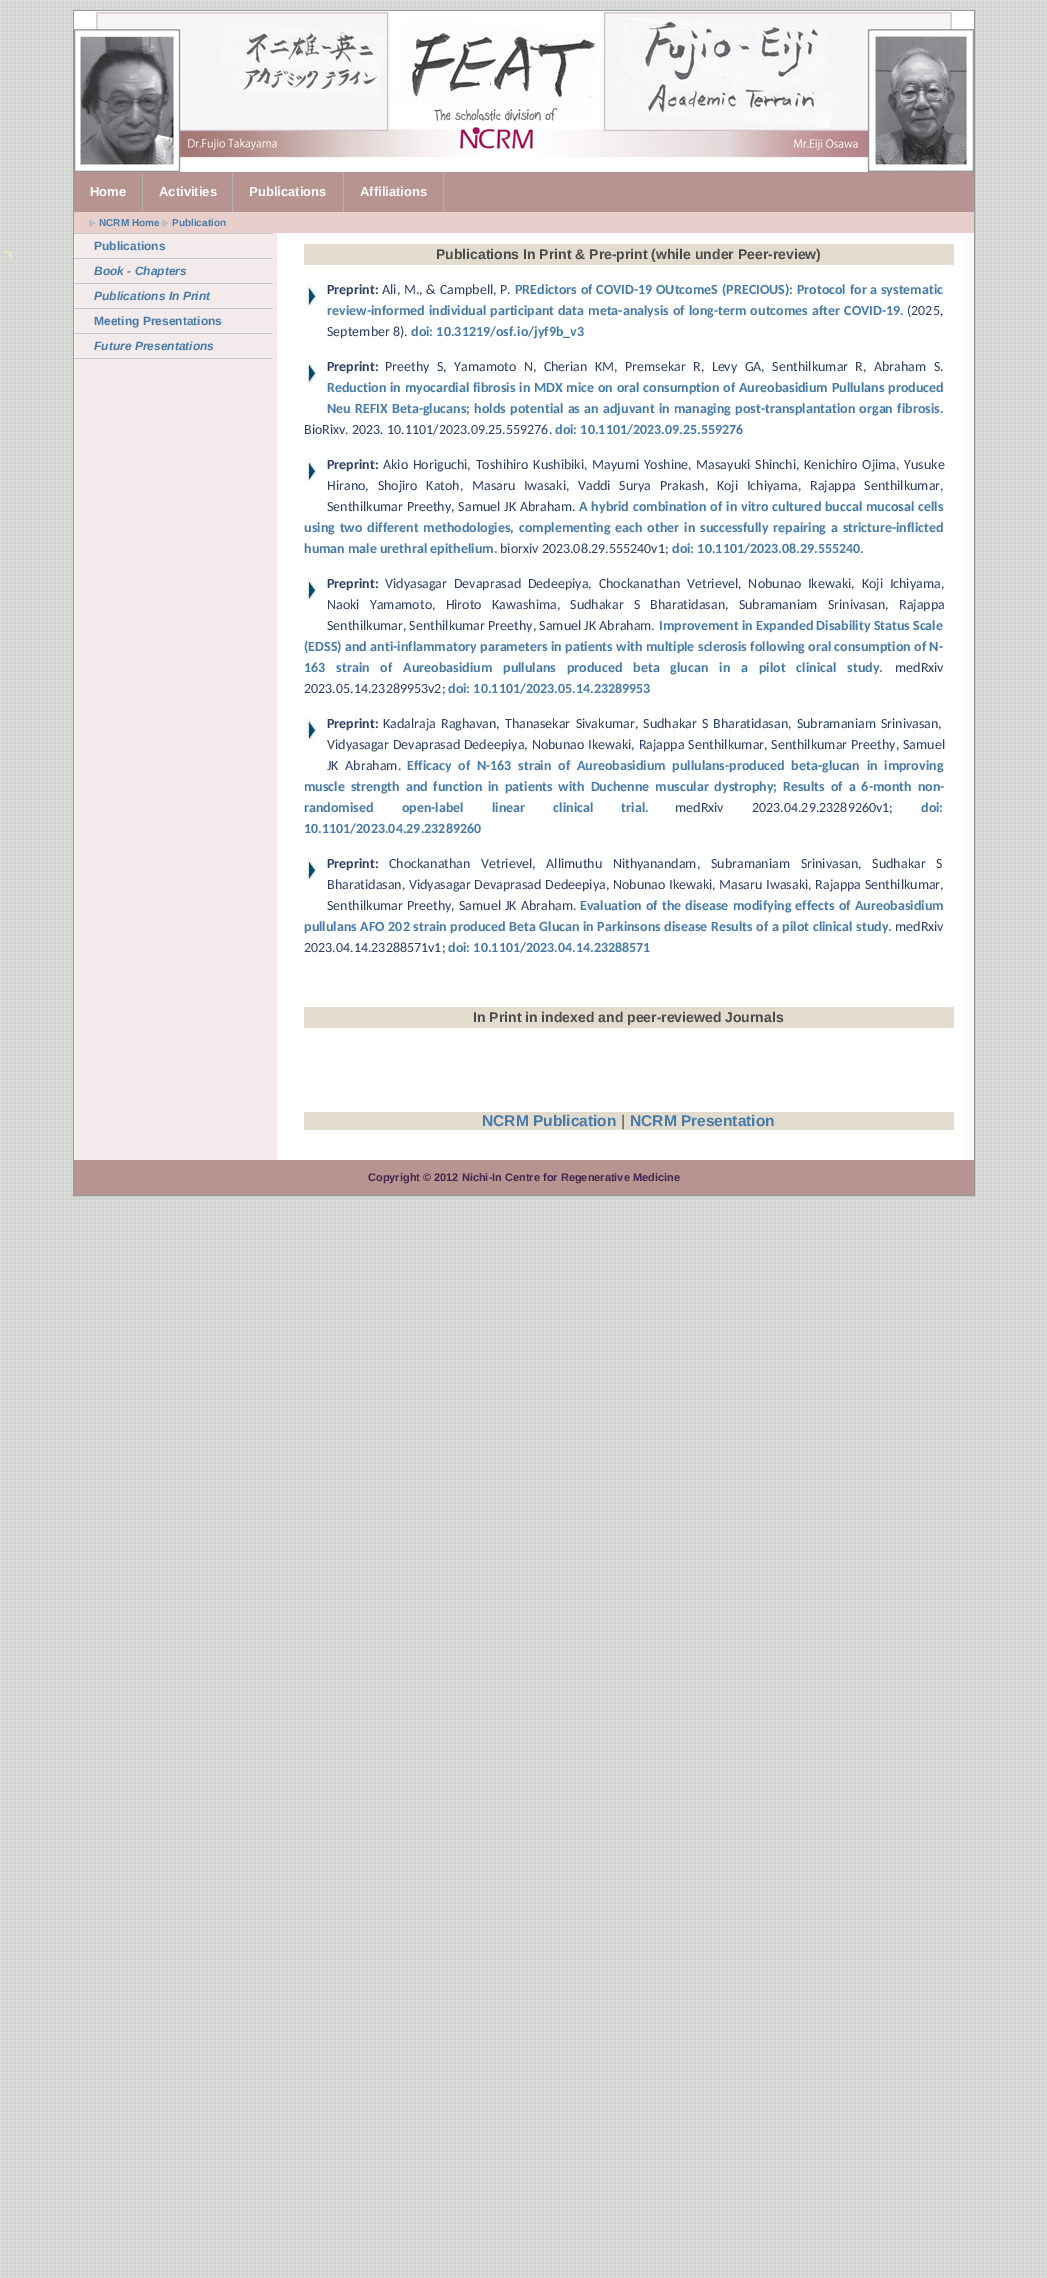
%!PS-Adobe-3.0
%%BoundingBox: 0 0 1047 2278
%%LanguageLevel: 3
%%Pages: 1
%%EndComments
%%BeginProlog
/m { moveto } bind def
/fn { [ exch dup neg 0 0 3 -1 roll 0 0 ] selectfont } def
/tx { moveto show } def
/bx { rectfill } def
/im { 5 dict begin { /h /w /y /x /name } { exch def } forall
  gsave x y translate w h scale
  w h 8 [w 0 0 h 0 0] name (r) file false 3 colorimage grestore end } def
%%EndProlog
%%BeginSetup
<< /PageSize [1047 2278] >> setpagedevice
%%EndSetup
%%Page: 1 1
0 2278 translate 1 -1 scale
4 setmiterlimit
1 setgray
0 0 1047 2278 bx
(image0.raw) 0 0 1047 2278 im
0.588 setgray
73.5 10.5 901 1185 rectstroke
(image1.raw) 74 11 900 161 im
0.718 0.58 0.565 setrgbcolor
74 172 900 40 bx
0.686 setgray
142 172 1 40 bx
/LiberationSans-Bold 13 fn
1 setgray
(Home) 90 196 tx
0.686 setgray
232 172 1 40 bx
1 setgray
(Activities) 159 196 tx
0.686 setgray
343 172 1 40 bx
1 setgray
(Publications) 249 196 tx
0.686 setgray
443 172 1 40 bx
1 setgray
(Affiliations) 360 196 tx
0.91 0.812 0.796 setrgbcolor
74 212 900 21 bx
(image2.raw) 89 219 6 8 im
/LiberationSans-Bold 10 fn
0.275 0.478 0.655 setrgbcolor
(NCRM Home) 99 226 tx
(image2.raw) 162 219 6 8 im
(Publication) 172 226 tx
(image3.raw) 74 233 900 927 im
(image4.raw) 2 251 10 10 im
0.784 setgray
74 358 199 1 bx
74 233 199 1 bx
/LiberationSans-Bold 12 fn
0.275 0.478 0.655 setrgbcolor
(Publications) 94 250 tx
0.784 setgray
74 258 199 1 bx
/LiberationSans-BoldItalic 12 fn
0.275 0.478 0.655 setrgbcolor
(Book - Chapters) 94 275 tx
0.784 setgray
74 283 199 1 bx
0.275 0.478 0.655 setrgbcolor
(Publications In Print) 94 300 tx
0.784 setgray
74 308 199 1 bx
/LiberationSans-Bold 12 fn
0.275 0.478 0.655 setrgbcolor
(Meeting Presentations) 94 325 tx
0.784 setgray
74 333 199 1 bx
/LiberationSans-BoldItalic 12 fn
0.275 0.478 0.655 setrgbcolor
(Future Presentations) 94 350 tx
0.886 0.859 0.808 setrgbcolor
304 244 650 21 bx
/LiberationSans-Bold 14 fn
0.294 setgray
(Publications In Print & Pre-print \(while under Peer-review\)) 436 259 tx
(image5.raw) 305 283 11 24 im
/Carlito-Bold 14 fn
0.173 0.247 0.396 setrgbcolor
(Preprint:) 327 294 tx
/Carlito-Regular 14 fn
382 294 m 0.5 0 32 (Ali, M., & Campbell, P.) widthshow
/Carlito-Bold 14 fn
0.275 0.478 0.655 setrgbcolor
515 294 m 0.5 0 32 (PREdictors of COVID-19 OUtcomeS) widthshow
722 294 m 0.5 0 32 (\(PRECIOUS\): Protocol for a systematic) widthshow
327 315 m 0.9 0 32 (review-informed individual participant data meta-analysis of long-term outcomes after COVID-19.) widthshow
/Carlito-Regular 14 fn
0.173 0.247 0.396 setrgbcolor
(\(2025,) 907 315 tx
(September 8\).) 327 336 tx
/Carlito-Bold 14 fn
0.275 0.478 0.655 setrgbcolor
(doi: 10.31219/osf.io/jyf9b_v3) 411 336 tx
(image5.raw) 305 360 11 24 im
0.173 0.247 0.396 setrgbcolor
(Preprint:) 327 371 tx
/Carlito-Regular 14 fn
385 371 m 4.25 0 32 (Preethy S, Yamamoto N, Cherian KM, Premsekar R, Levy GA, Senthilkumar R, Abraham S.) widthshow
/Carlito-Bold 14 fn
0.275 0.478 0.655 setrgbcolor
327 392 m 0.6 0 32 (Reduction in myocardial fibrosis in MDX mice on oral consumption of Aureobasidium Pullulans produced) widthshow
327 413 m 1.1 0 32 (Neu REFIX Beta-glucans; holds potential as an adjuvant in managing post-transplantation organ fibrosis.) widthshow
/Carlito-Regular 14 fn
0.173 0.247 0.396 setrgbcolor
(BioRixv. 2023. 10.1101/2023.09.25.559276.) 304 434 tx
/Carlito-Bold 14 fn
0.275 0.478 0.655 setrgbcolor
(doi: 10.1101/2023.09.25.559276) 555 434 tx
(image5.raw) 305 458 11 24 im
0.173 0.247 0.396 setrgbcolor
(Preprint:) 327 469 tx
/Carlito-Regular 14 fn
383 469 m 1.5 0 32 (Akio Horiguchi, Toshihiro Kushibiki, Mayumi Yoshine, Masayuki Shinchi, Kenichiro Ojima, Yusuke) widthshow
327 490 m 5.6 0 32 (Hirano, Shojiro Katoh, Masaru Iwasaki, Vaddi Surya Prakash, Koji Ichiyama, Rajappa Senthilkumar,) widthshow
327 511 m 0.75 0 32 (Senthilkumar Preethy, Samuel JK Abraham.) widthshow
/Carlito-Bold 14 fn
0.275 0.478 0.655 setrgbcolor
579 511 m 0.75 0 32 (A hybrid combination of in vitro cultured buccal mucosal cells) widthshow
304 532 m 1.75 0 32 (using two different methodologies, complementing each other in successfully repairing a stricture-inflicted) widthshow
(human male urethral epithelium.) 304 553 tx
/Carlito-Regular 14 fn
0.173 0.247 0.396 setrgbcolor
(biorxiv 2023.08.29.555240v1;) 500 553 tx
/Carlito-Bold 14 fn
0.275 0.478 0.655 setrgbcolor
(doi: 10.1101/2023.08.29.555240.) 672 553 tx
(image5.raw) 305 577 11 24 im
0.173 0.247 0.396 setrgbcolor
(Preprint:) 327 588 tx
/Carlito-Regular 14 fn
385 588 m 3.75 0 32 (Vidyasagar Devaprasad Dedeepiya, Chockanathan Vetrievel, Nobunao Ikewaki, Koji Ichiyama,) widthshow
327 609 m 7 0 32 (Naoki Yamamoto, Hiroto Kawashima, Sudhakar S Bharatidasan, Subramaniam Srinivasan, Rajappa) widthshow
(Senthilkumar, Senthilkumar Preethy, Samuel JK Abraham.) 327 630 tx
/Carlito-Bold 14 fn
0.275 0.478 0.655 setrgbcolor
(Improvement in Expanded Disability Status Scale) 659 630 tx
304 651 m 0.25 0 32 (\(EDSS\) and anti-inflammatory parameters in patients with multiple sclerosis following oral consumption of N-) widthshow
304 672 m 7.75 0 32 (163 strain of Aureobasidium pullulans produced beta glucan in a pilot clinical study.) widthshow
/Carlito-Regular 14 fn
0.173 0.247 0.396 setrgbcolor
(medRxiv) 895 672 tx
(2023.05.14.23289953v2;) 304 693 tx
/Carlito-Bold 14 fn
0.275 0.478 0.655 setrgbcolor
(doi: 10.1101/2023.05.14.23289953) 448 693 tx
(image5.raw) 305 717 11 24 im
0.173 0.247 0.396 setrgbcolor
(Preprint:) 327 728 tx
/Carlito-Regular 14 fn
383 728 m 2 0 32 (Kadalraja Raghavan, Thanasekar Sivakumar, Sudhakar S Bharatidasan, Subramaniam Srinivasan,) widthshow
327 749 m 0.75 0 32 (Vidyasagar Devaprasad Dedeepiya, Nobunao Ikewaki, Rajappa Senthilkumar, Senthilkumar Preethy, Samuel) widthshow
327 770 m 3.5 0 32 (JK Abraham.) widthshow
/Carlito-Bold 14 fn
0.275 0.478 0.655 setrgbcolor
407 770 m 3.5 0 32 (Efficacy of N-163 strain of Aureobasidium pullulans-produced beta-glucan in improving) widthshow
304 791 m 2.75 0 32 (muscle strength and function in patients with Duchenne muscular dystrophy; Results of a 6-month non-) widthshow
304 812 m 25 0 32 (randomised open-label linear clinical trial.) widthshow
/Carlito-Regular 14 fn
0.173 0.247 0.396 setrgbcolor
675 812 m 25 0 32 (medRxiv 2023.04.29.23289260v1;) widthshow
/Carlito-Bold 14 fn
0.275 0.478 0.655 setrgbcolor
(doi:) 921 812 tx
(10.1101/2023.04.29.23289260) 304 833 tx
(image5.raw) 305 857 11 24 im
0.173 0.247 0.396 setrgbcolor
(Preprint:) 327 868 tx
/Carlito-Regular 14 fn
389 868 m 7.5 0 32 (Chockanathan Vetrievel, Allimuthu Nithyanandam, Subramaniam Srinivasan, Sudhakar S) widthshow
327 889 m 0.5 0 32 (Bharatidasan, Vidyasagar Devaprasad Dedeepiya, Nobunao Ikewaki, Masaru Iwasaki, Rajappa Senthilkumar,) widthshow
327 910 m 1 0 32 (Senthilkumar Preethy, Samuel JK Abraham.) widthshow
/Carlito-Bold 14 fn
0.275 0.478 0.655 setrgbcolor
580 910 m 1 0 32 (Evaluation of the disease modifying effects of Aureobasidium) widthshow
304 931 m 0.4 0 32 (pullulans AFO 202 strain produced Beta Glucan in Parkinsons disease Results of a pilot clinical study.) widthshow
/Carlito-Regular 14 fn
0.173 0.247 0.396 setrgbcolor
(medRxiv) 895 931 tx
(2023.04.14.23288571v1;) 304 952 tx
/Carlito-Bold 14 fn
0.275 0.478 0.655 setrgbcolor
(doi: 10.1101/2023.04.14.23288571) 448 952 tx
0.886 0.859 0.808 setrgbcolor
304 1007 650 21 bx
/LiberationSans-Bold 14 fn
0.294 setgray
(In Print in indexed and peer-reviewed Journals) 473 1022 tx
0.886 0.859 0.808 setrgbcolor
304 1112 650 18 bx
/LiberationSans-Bold 15.5 fn
0.275 0.478 0.655 setrgbcolor
(NCRM Publication) 482 1126 tx
/LiberationSans-Regular 15.5 fn
0.294 setgray
(|) 621 1126 tx
/LiberationSans-Bold 15.5 fn
0.275 0.478 0.655 setrgbcolor
(NCRM Presentation) 630 1126 tx
0.718 0.58 0.565 setrgbcolor
74 1160 900 35 bx
/LiberationSans-Bold 11 fn
0.259 0.149 0.298 setrgbcolor
(Copyright © 2012 Nichi-In Centre for Regenerative Medicine) 368 1181 tx
showpage
%%EOF
